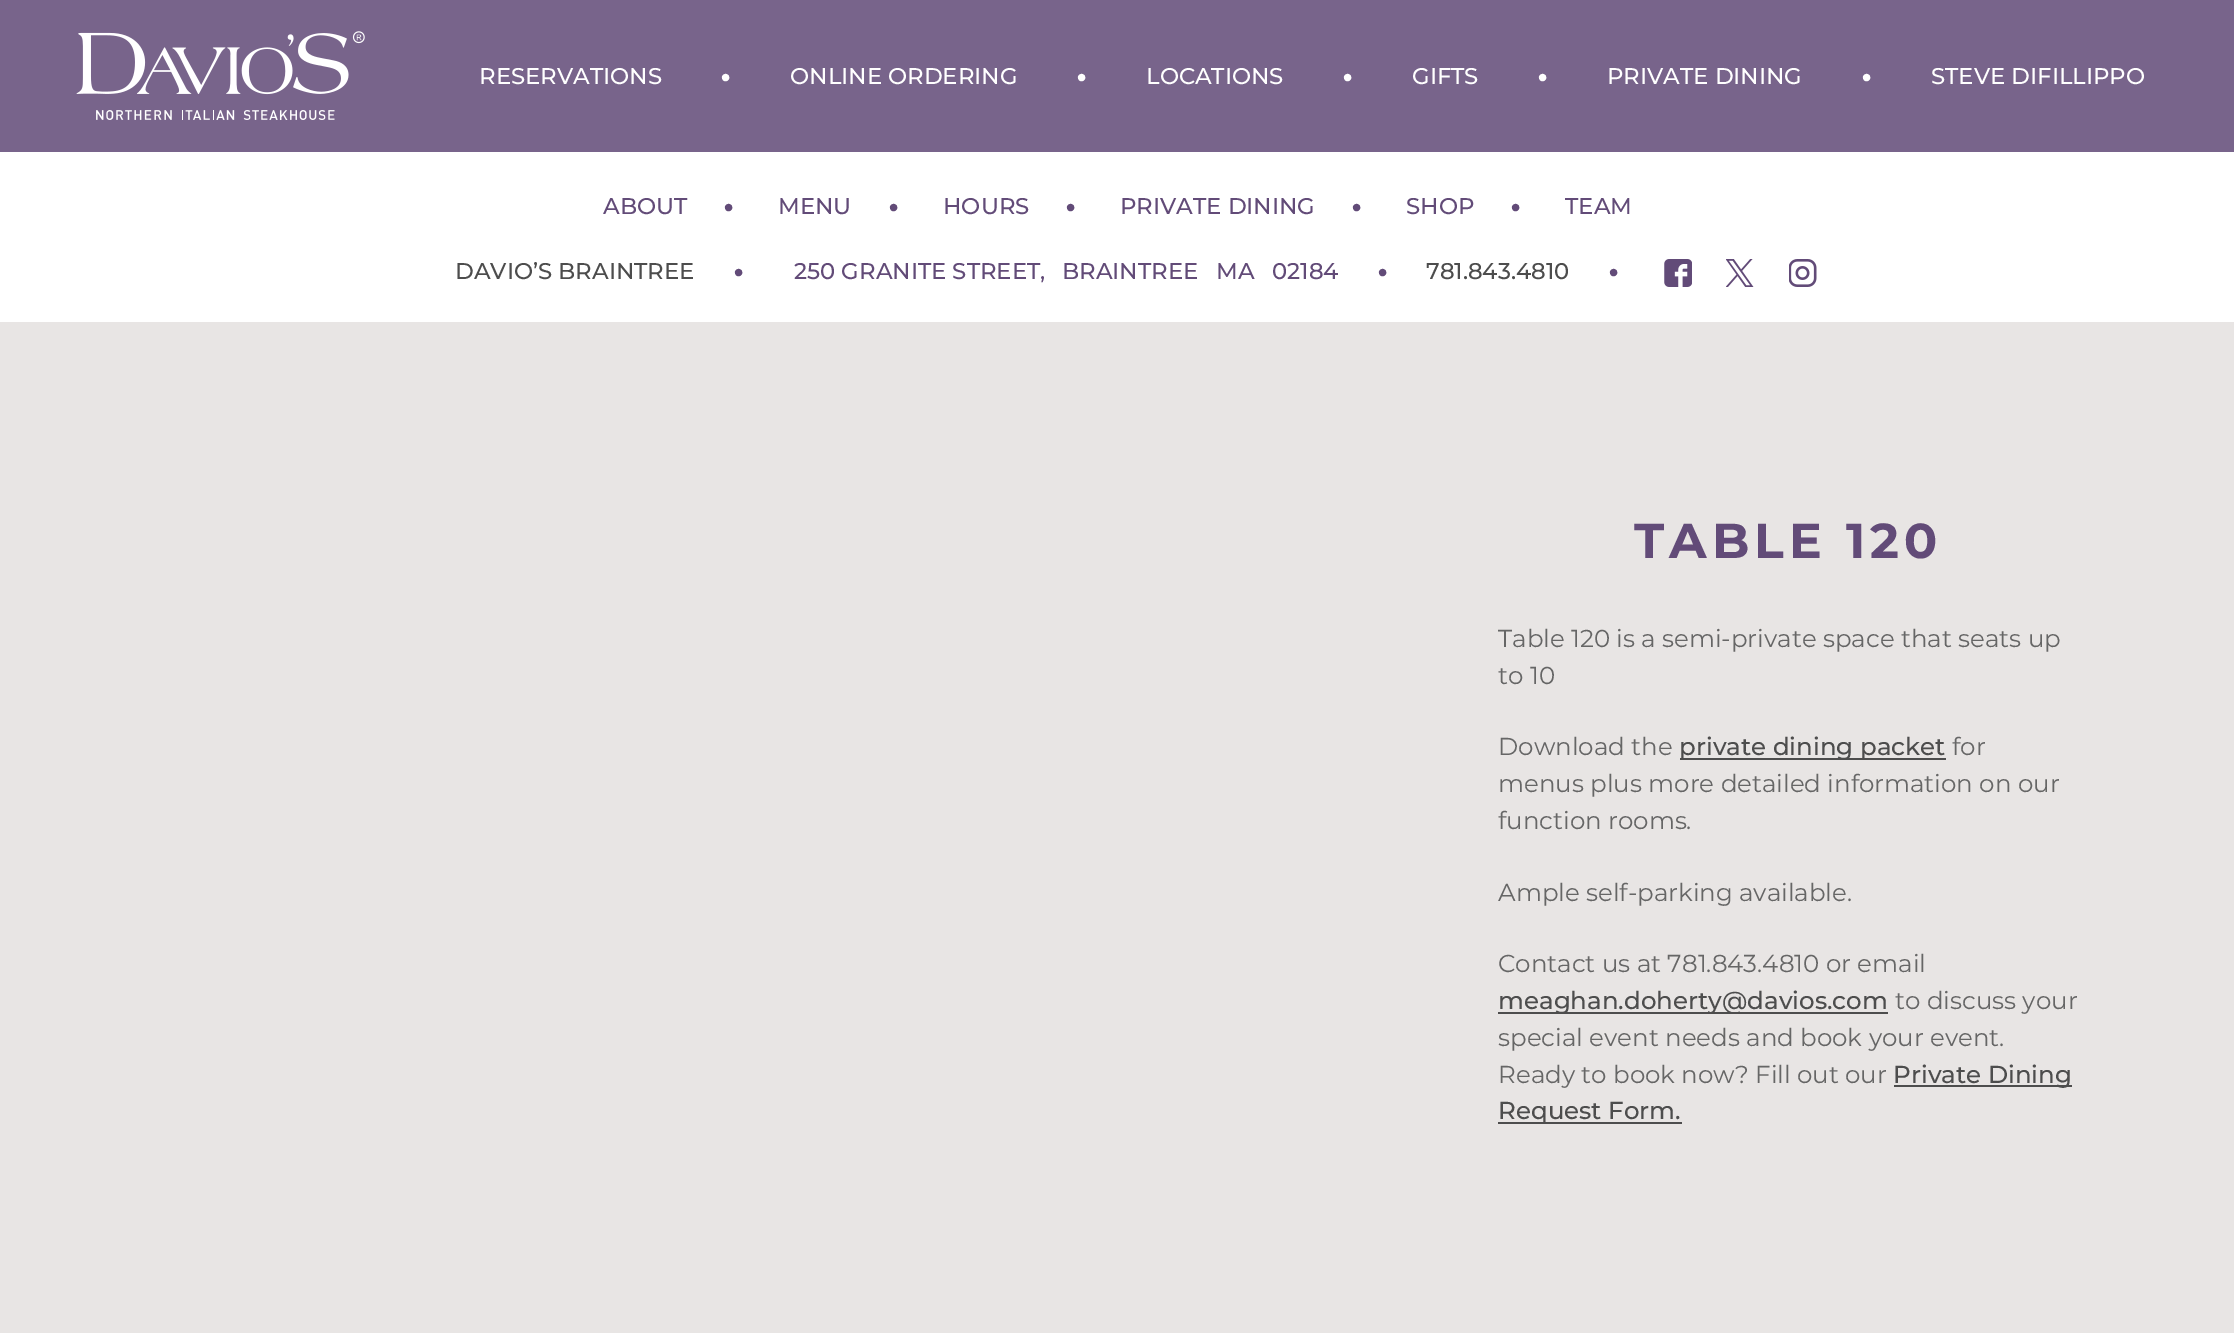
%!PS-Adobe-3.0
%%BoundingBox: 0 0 2234 1333
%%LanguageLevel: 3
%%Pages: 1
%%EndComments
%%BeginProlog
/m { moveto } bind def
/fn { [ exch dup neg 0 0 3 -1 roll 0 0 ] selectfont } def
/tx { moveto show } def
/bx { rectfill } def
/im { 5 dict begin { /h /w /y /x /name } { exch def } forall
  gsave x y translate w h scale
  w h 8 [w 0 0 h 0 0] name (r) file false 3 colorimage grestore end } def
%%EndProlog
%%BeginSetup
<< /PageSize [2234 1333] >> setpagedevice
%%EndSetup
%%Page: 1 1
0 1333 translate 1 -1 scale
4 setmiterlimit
1 setgray
0 0 2234 1333 bx
0.471 0.392 0.545 setrgbcolor
0 0 2234 152 bx
(image0.raw) 76 31 289 89 im
/Montserrat-Medium 22.75 fn
1 setgray
(RESERVATIONS) 479 84 tx
/Montserrat-Black 22.75 fn
(•) 721 84 tx
/Montserrat-Medium 22.75 fn
(ONLINE ORDERING) 790 84 tx
/Montserrat-Black 22.75 fn
(•) 1077 84 tx
/Montserrat-Medium 22.75 fn
(LOCATIONS) 1146 84 tx
/Montserrat-Black 22.75 fn
(•) 1343 84 tx
/Montserrat-Medium 22.75 fn
(GIFTS) 1412 84 tx
/Montserrat-Black 22.75 fn
(•) 1538 84 tx
/Montserrat-Medium 22.75 fn
(PRIVATE DINING) 1607 84 tx
/Montserrat-Black 22.75 fn
(•) 1862 84 tx
/Montserrat-Medium 22.75 fn
(STEVE DIFILLIPPO) 1931 84 tx
0.384 0.294 0.471 setrgbcolor
(ABOUT) 603 214 tx
/Montserrat-Black 22.75 fn
(•) 724 214 tx
/Montserrat-Medium 22.75 fn
(MENU) 778 214 tx
/Montserrat-Black 22.75 fn
(•) 889 214 tx
/Montserrat-Medium 22.75 fn
(HOURS) 943 214 tx
/Montserrat-Black 22.75 fn
(•) 1066 214 tx
/Montserrat-Medium 22.75 fn
(PRIVATE DINING) 1120 214 tx
/Montserrat-Black 22.75 fn
(•) 1352 214 tx
/Montserrat-Medium 22.75 fn
(SHOP) 1406 214 tx
/Montserrat-Black 22.75 fn
(•) 1511 214 tx
/Montserrat-Medium 22.75 fn
(TEAM) 1565 214 tx
0.302 setgray
(DAVIO’S BRAINTREE) 455 279 tx
/Montserrat-Black 22.75 fn
0.384 0.294 0.471 setrgbcolor
(•) 734 279 tx
/Montserrat-Medium 22.75 fn
(250 GRANITE STREET,) 794 279 tx
(BRAINTREE) 1062 279 tx
(MA) 1216 279 tx
(02184) 1272 279 tx
/Montserrat-Black 22.75 fn
(•) 1378 279 tx
/Montserrat-Medium 22.75 fn
0.302 setgray
(781.843.4810) 1426 279 tx
/Montserrat-Black 22.75 fn
0.384 0.294 0.471 setrgbcolor
(•) 1609 279 tx
(image1.raw) 1664 259 28 28 im
(image2.raw) 1726 259 28 28 im
(image3.raw) 1789 259 28 28 im
0.91 0.898 0.894 setrgbcolor
0 322 2234 1011 bx
/Montserrat-Bold 49 fn
0.384 0.294 0.471 setrgbcolor
1634 558 m 5 0 (TABLE 120) ashow
/Montserrat-Regular 24.5 fn
0.4 setgray
(Table 120 is a semi-private space that seats up) 1498 647 tx
(to 10) 1498 684 tx
(Download the) 1498 755 tx
0.302 setgray
1680 758 266 2 bx
/Montserrat-Medium 24.5 fn
(private dining packet) 1679 755 tx
/Montserrat-Regular 24.5 fn
0.4 setgray
(for) 1952 755 tx
(menus plus more detailed information on our) 1498 792 tx
(function rooms.) 1498 829 tx
(Ample self-parking available.) 1498 901 tx
(Contact us at 781.843.4810 or email) 1498 972 tx
0.302 setgray
1498 1012 390 2 bx
/Montserrat-Medium 24.5 fn
(meaghan.doherty@davios.com) 1498 1009 tx
/Montserrat-Regular 24.5 fn
0.4 setgray
(to discuss your) 1895 1009 tx
(special event needs and book your event.) 1498 1046 tx
(Ready to book now? Fill out our) 1498 1083 tx
0.302 setgray
1894 1085 178 2 bx
/Montserrat-Medium 24.5 fn
(Private Dining) 1893 1083 tx
1498 1122 184 2 bx
(Request Form.) 1498 1119 tx
showpage
%%EOF
